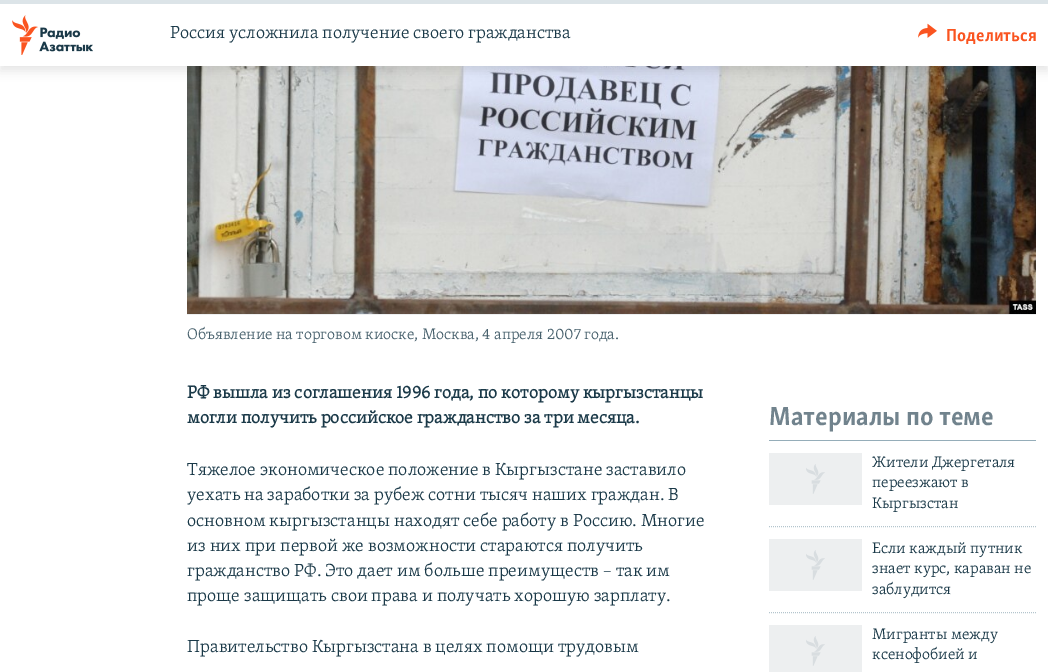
%!PS-Adobe-3.0
%%BoundingBox: 0 0 1048 672
%%LanguageLevel: 3
%%Pages: 1
%%EndComments
%%BeginProlog
/m { moveto } bind def
/l { lineto } bind def
/S { stroke } bind def
/fn { [ exch dup neg 0 0 3 -1 roll 0 0 ] selectfont } def
/tx { moveto show } def
/bx { rectfill } def
/al { dup .setfillconstantalpha .setstrokeconstantalpha } def
/rr { 5 dict begin { /r /h /w /y /x } { exch def } forall
  x r add y moveto x w add y 2 copy h add r arct x w add y h add x 1 index r arct
  x y h add x y r arct x y 2 copy exch w add exch r arct closepath end } def
/sh { 12 dict begin { /a /b /q /h /w /y /x } { exch def } forall gsave /was 0 def
  9 -2 -9 { dup b mul 4 div /e exch def 1 sub .425 mul 2.718 exch exp 1 add a .99 .min exch div /now exch def
    1 1 now sub 1 was sub div sub al /was now def
    w h .min e 2 mul add 0 gt { x e sub y e sub w e 2 mul add h e 2 mul add
      q e add b .6 mul add w h .min 2 div e add .min 0 .max rr fill } if } for grestore end } def
/im { 5 dict begin { /h /w /y /x /name } { exch def } forall
  gsave x y translate w h scale
  w h 8 [w 0 0 h 0 0] name (r) file false 3 colorimage grestore end } def
%%EndProlog
%%BeginSetup
<< /PageSize [1048 672] /PageUsesTransparency true >> setpagedevice
%%EndSetup
%%Page: 1 1
0 .pushpdf14devicefilter
0 672 translate 1 -1 scale
4 setmiterlimit
1 setgray
0 0 1048 672 bx
(image2.raw) 187 66 849 248 im
0 setgray
0 5 1048 66 0 5 0.1 sh
1 setgray
0 4 1048 62 bx
0.863 0.894 0.91 setrgbcolor
0 0 1048 4 bx
(image0.raw) 12 15 81 40 im
/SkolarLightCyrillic-Light 18 fn
0.102 0.224 0.282 setrgbcolor
(Россия усложнила получение своего гражданства) 170 38 tx
(image1.raw) 918 23 19 15 im
/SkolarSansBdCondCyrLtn-Bold 18 fn
0.98 0.329 0.125 setrgbcolor
(Поделиться) 946 41 tx
0.929 0.937 0.941 setrgbcolor
187 314 849 1 bx
/SkolarLightCyrillic-Light 15.75 fn
0.282 0.38 0.427 setrgbcolor
(Объявление на торговом киоске, Москва, 4 апреля 2007 года.) 187 339 tx
/SkolarLightCyrillic-Bold 18 fn
0.102 0.224 0.282 setrgbcolor
(РФ вышла из соглашения 1996 года, по которому кыргызстанцы) 187 398 tx
(могли получить российское гражданство за три месяца.) 187 423 tx
/SkolarLightCyrillic-Light 18 fn
(Тяжелое экономическое положение в Кыргызстане заставило) 187 475 tx
(уехать на заработки за рубеж сотни тысяч наших граждан. В) 187 500 tx
(основном кыргызстанцы находят себе работу в Россию. Многие) 187 526 tx
(из них при первой же возможности стараются получить) 187 551 tx
(гражданство РФ. Это дает им больше преимуществ – так им) 187 576 tx
(проще защищать свои права и получать хорошую зарплату.) 187 601 tx
(Правительство Кыргызстана в целях помощи трудовым) 187 652 tx
0.584 0.678 0.725 setrgbcolor
769 440 267 1 bx
/SkolarSansBdCondCyrLtn-Bold 27 fn
0.443 0.514 0.553 setrgbcolor
(Материалы по теме) 769 425 tx
0.929 0.937 0.941 setrgbcolor
769 453 93 52 bx
(image3.raw) 806 464 19 30 im
/SkolarLightCyrillic-Light 15.75 fn
0.102 0.224 0.282 setrgbcolor
(Жители Джергеталя) 872 467 tx
(переезжают в) 872 487 tx
(Кыргызстан) 872 508 tx
0.706 0.773 0.804 setrgbcolor
[1 1] 0 setdash
769 526.5 m 1036 526.5 l S
0.929 0.937 0.941 setrgbcolor
769 539 93 52 bx
(image3.raw) 806 550 19 30 im
0.102 0.224 0.282 setrgbcolor
(Если каждый путник) 872 553 tx
(знает курс, караван не) 872 573 tx
(заблудится) 872 594 tx
0.706 0.773 0.804 setrgbcolor
769 612.5 m 1036 612.5 l S
0.929 0.937 0.941 setrgbcolor
769 625 93 47 bx
(image3.raw) 806 636 19 30 im
0.102 0.224 0.282 setrgbcolor
(Мигранты между) 872 639 tx
(ксенофобией и) 872 659 tx
.poppdf14devicefilter showpage
%%EOF
